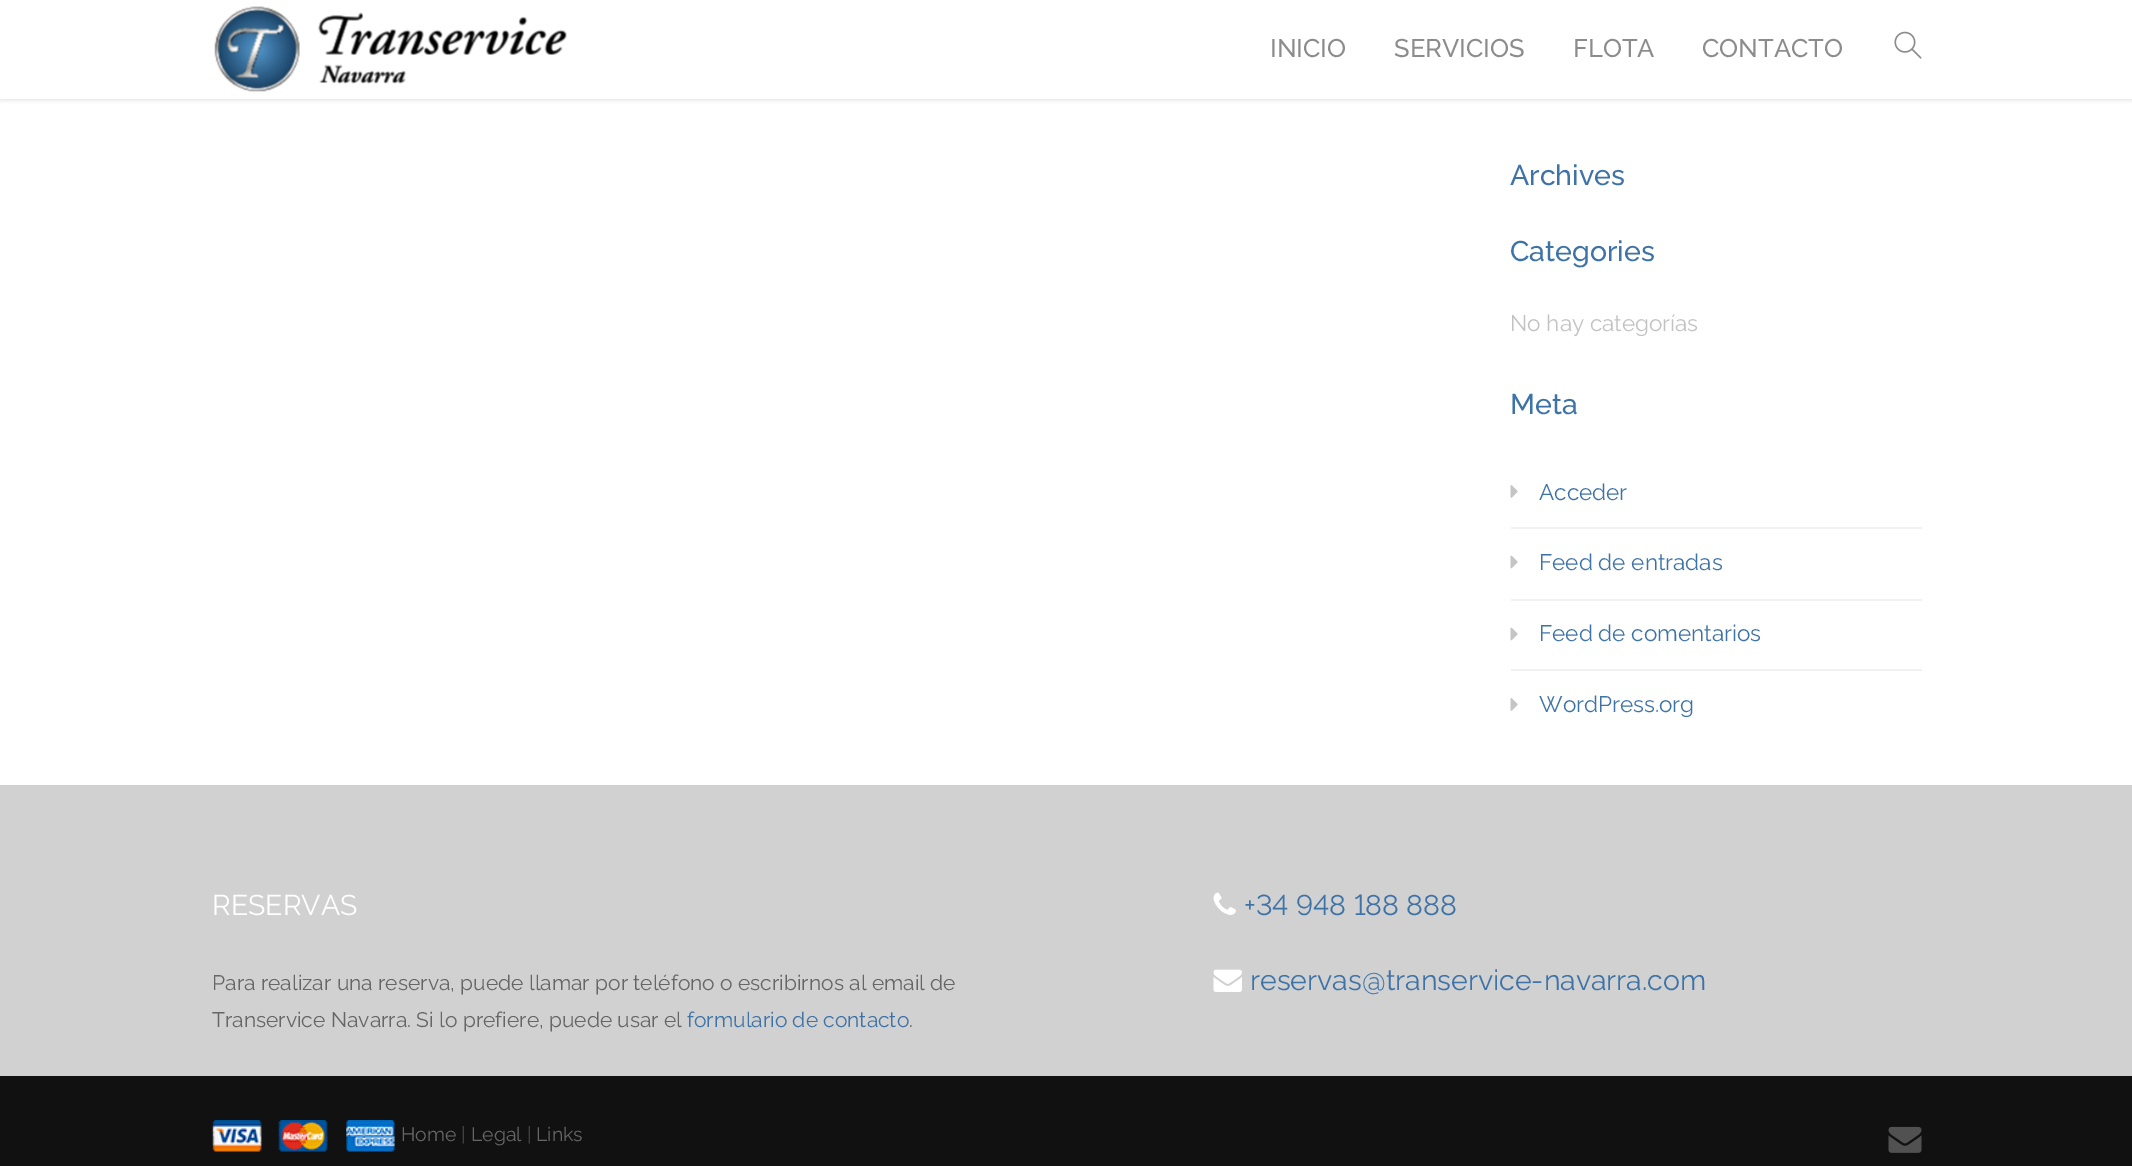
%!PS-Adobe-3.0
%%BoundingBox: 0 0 2132 1166
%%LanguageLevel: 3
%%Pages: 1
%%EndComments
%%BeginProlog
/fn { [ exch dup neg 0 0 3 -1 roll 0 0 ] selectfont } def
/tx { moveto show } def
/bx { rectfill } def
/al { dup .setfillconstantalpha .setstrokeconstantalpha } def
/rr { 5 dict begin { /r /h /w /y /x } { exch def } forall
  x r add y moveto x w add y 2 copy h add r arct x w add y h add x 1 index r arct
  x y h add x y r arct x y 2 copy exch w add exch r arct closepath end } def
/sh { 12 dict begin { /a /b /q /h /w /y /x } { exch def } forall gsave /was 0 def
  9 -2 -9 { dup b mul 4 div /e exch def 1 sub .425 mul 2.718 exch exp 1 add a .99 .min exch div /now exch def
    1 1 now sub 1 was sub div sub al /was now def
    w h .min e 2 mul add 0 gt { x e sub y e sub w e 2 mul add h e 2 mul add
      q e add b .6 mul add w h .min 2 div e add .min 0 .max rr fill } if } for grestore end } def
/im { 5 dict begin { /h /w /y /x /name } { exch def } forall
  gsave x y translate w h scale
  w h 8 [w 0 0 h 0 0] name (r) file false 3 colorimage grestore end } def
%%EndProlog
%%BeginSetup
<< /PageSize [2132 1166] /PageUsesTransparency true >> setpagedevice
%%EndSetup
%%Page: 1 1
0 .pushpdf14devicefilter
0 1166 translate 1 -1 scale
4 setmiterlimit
1 setgray
0 0 2132 1166 bx
0 setgray
0 2 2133 99 0 1.5 0.07 sh
1 setgray
0 0 2132 99 bx
(image0.raw) 214 6 353 86 im
/Raleway-Medium 25.5 fn
0.549 setgray
(INICIO) 1270 57 tx
(SERVICIOS) 1394 57 tx
(FLOTA) 1573 57 tx
(CONTACTO) 1702 57 tx
(image1.raw) 1894 31 28 28 im
/Raleway-Medium 28.5 fn
0.243 0.451 0.655 setrgbcolor
(Archives) 1510 185 tx
(Categories) 1510 261 tx
/Raleway-Regular 22.5 fn
0.761 setgray
(No hay categorías) 1510 331 tx
/Raleway-Medium 28.5 fn
0.243 0.451 0.655 setrgbcolor
(Meta) 1510 414 tx
0.945 setgray
1511 527 411 2 bx
(image2.raw) 1510 485 8 13 im
/Raleway-Regular 22.5 fn
0.243 0.451 0.655 setrgbcolor
(Acceder) 1539 500 tx
0.945 setgray
1511 599 411 2 bx
(image3.raw) 1510 555 8 14 im
0.243 0.451 0.655 setrgbcolor
(Feed de entradas) 1539 570 tx
0.945 setgray
1511 669 411 2 bx
(image3.raw) 1510 627 8 14 im
0.243 0.451 0.655 setrgbcolor
(Feed de comentarios) 1539 641 tx
(image2.raw) 1510 698 8 13 im
(WordPress.org) 1539 712 tx
0.82 setgray
0 785 2132 291 bx
/Raleway-Regular 28.5 fn
1 setgray
(RESERVAS) 212 915 tx
/Raleway-Regular 21 fn
0.4 setgray
(Para realizar una reserva, puede llamar por teléfono o escribirnos al email de) 212 990 tx
(Transervice Navarra. Si lo prefiere, puede usar el) 212 1027 tx
0.243 0.451 0.655 setrgbcolor
(formulario de contacto) 687 1027 tx
0.4 setgray
(.) 909 1027 tx
(image4.raw) 1213 892 23 23 im
/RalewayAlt-Regular 28.5 fn
0.243 0.451 0.655 setrgbcolor
(+34 948 188 888) 1244 915 tx
(image5.raw) 1213 969 29 23 im
/Raleway-Regular 28.5 fn
(reservas@transervice-navarra.com) 1250 990 tx
0.067 setgray
0 1076 2132 90 bx
(image6.raw) 212 1120 183 32 im
/Raleway-Regular 19.5 fn
0.4 setgray
(Home) 401 1141 tx
0.318 setgray
(|) 461 1141 tx
0.4 setgray
(Legal) 471 1141 tx
0.318 setgray
(|) 527 1141 tx
0.4 setgray
(Links) 536 1141 tx
(image7.raw) 1888 1126 34 27 im
.poppdf14devicefilter showpage
%%EOF
